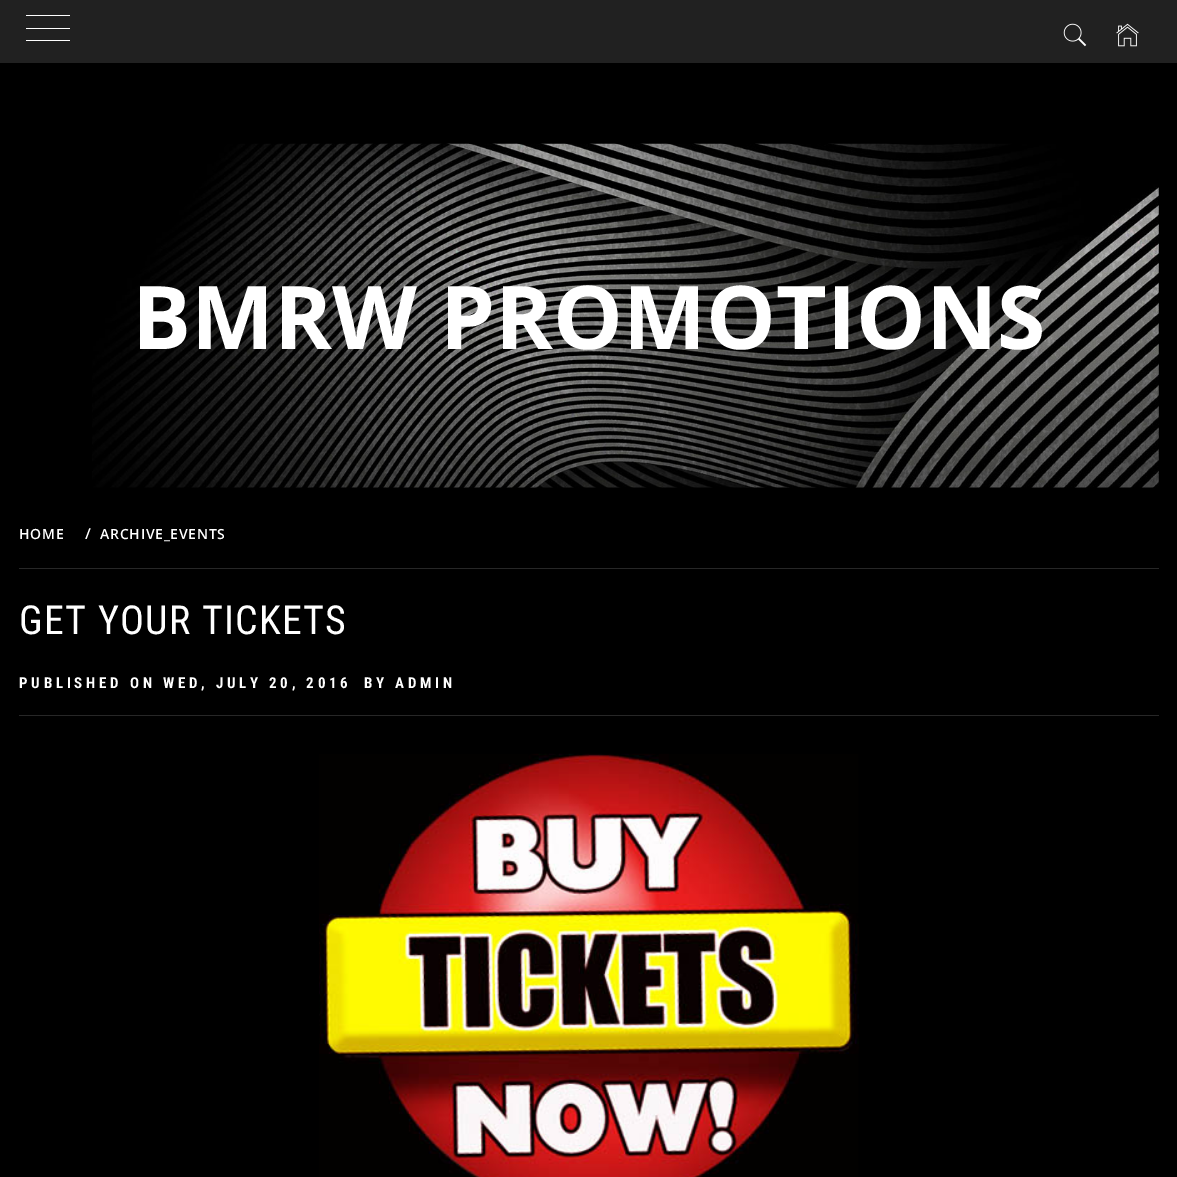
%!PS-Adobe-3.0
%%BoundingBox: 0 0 1177 1177
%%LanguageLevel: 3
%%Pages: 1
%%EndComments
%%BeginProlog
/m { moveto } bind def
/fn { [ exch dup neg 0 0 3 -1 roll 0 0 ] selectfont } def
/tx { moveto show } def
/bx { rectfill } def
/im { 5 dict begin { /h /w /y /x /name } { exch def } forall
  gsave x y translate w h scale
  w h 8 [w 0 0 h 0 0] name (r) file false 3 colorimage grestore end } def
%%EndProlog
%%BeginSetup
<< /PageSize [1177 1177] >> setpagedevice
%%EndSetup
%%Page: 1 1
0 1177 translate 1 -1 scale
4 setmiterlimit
0 setgray
0 0 1177 1177 bx
0.129 setgray
0 0 1177 63 bx
1 setgray
26 15 44 1 bx
26 28 44 1 bx
26 40 44 1 bx
(image0.raw) 1063 23 24 24 im
(image1.raw) 1116 23 23 24 im
(image2.raw) 92 143 1067 345 im
/OpenSans-Bold 87.9 fn
(BMRW PROMOTIONS) 132 349 tx
0.153 setgray
19 715 1140 1 bx
19 568 1140 1 bx
/OpenSans-SemiBold 14 fn
1 setgray
19 539 m 0.75 0 (HOME) ashow
/OpenSans-SemiBold 15 fn
85 539 m 0.75 0 (/) ashow
/OpenSans-SemiBold 14 fn
100 539 m 0.75 0 (ARCHIVE_EVENTS) ashow
/RobotoCondensed-Regular 40 fn
19 634 m 1.25 0 (GET YOUR TICKETS) ashow
/RobotoCondensed-Bold 15 fn
19 688 m 3.75 0 (PUBLISHED ON WED, JULY 20, 2016) ashow
364 688 m 3.75 0 (BY ADMIN) ashow
(image3.raw) 319 753 540 424 im
showpage
%%EOF
